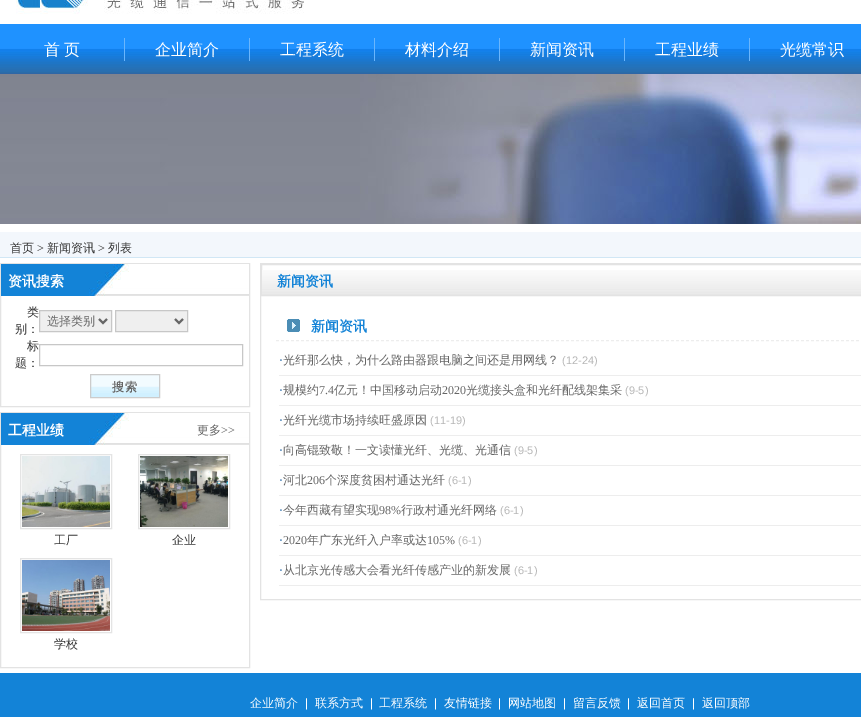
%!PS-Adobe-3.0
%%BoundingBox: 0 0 861 717
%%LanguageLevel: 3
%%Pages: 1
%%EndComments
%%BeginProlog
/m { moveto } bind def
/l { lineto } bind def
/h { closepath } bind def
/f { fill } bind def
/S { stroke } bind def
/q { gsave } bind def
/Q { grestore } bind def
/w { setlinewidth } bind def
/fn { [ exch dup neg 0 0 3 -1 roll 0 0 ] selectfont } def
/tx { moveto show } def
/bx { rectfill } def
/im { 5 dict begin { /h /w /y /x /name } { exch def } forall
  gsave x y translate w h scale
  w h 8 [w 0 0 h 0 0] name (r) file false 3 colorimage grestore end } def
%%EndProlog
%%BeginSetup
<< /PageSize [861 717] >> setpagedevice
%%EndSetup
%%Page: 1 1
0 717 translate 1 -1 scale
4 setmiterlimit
1 setgray
0 0 861 717 bx
(image0.raw) 16 0 288 14 im
(image1.raw) 0 24 861 50 im
/WenQuanYiZenHei-Medium 16 fn
(首) 44 55 tx
(页) 64 55 tx
0.416 0.714 0.992 setrgbcolor
124 38 1 23 bx
1 setgray
(企业简介) 155 55 tx
0.416 0.714 0.992 setrgbcolor
249 38 1 23 bx
1 setgray
(工程系统) 280 55 tx
0.416 0.714 0.992 setrgbcolor
374 38 1 23 bx
1 setgray
(材料介绍) 405 55 tx
0.416 0.714 0.992 setrgbcolor
499 38 1 23 bx
1 setgray
(新闻资讯) 530 55 tx
0.416 0.714 0.992 setrgbcolor
624 38 1 23 bx
1 setgray
(工程业绩) 655 55 tx
0.416 0.714 0.992 setrgbcolor
749 38 1 23 bx
1 setgray
(光缆常识) 780 55 tx
(image2.raw) 0 74 861 150 im
0.953 0.969 0.988 setrgbcolor
0 232 861 25 bx
0.82 0.906 0.961 setrgbcolor
0 257 861 1 bx
/WenQuanYiZenHei-Medium 12 fn
0.2 setgray
(首页) 10 252 tx
/LiberationSerif-Regular 12 fn
(>) 37 252 tx
/WenQuanYiZenHei-Medium 12 fn
(新闻资讯) 47 252 tx
/LiberationSerif-Regular 12 fn
(>) 98 252 tx
/WenQuanYiZenHei-Medium 12 fn
(列表) 108 252 tx
0.89 setgray
0.5 263.5 249 143 rectstroke
(image3.raw) 1 264 248 32 im
/WenQuanYiZenHei-Bold 14 fn
1 setgray
(资讯搜索) 8 286 tx
/WenQuanYiZenHei-Medium 12 fn
0.2 setgray
(类) 27 316 tx
(别：) 15 333 tx
0.937 setgray
39.5 310.5 m 111.5 310.5 l 111.5 331.5 l 39.5 331.5 l h q f Q
0.78 setgray
S
0.4 setgray
2 w
99 319 m 103 323 l 107 319 l S
(选择类别) 47 325 tx
0.937 setgray
115.5 310.5 m 187.5 310.5 l 187.5 331.5 l 115.5 331.5 l h q f Q
0.78 setgray
1 w
S
0.4 setgray
2 w
175 319 m 179 323 l 183 319 l S
0.2 setgray
(标) 27 350 tx
(题：) 15 367 tx
0.78 setgray
1 w
39.5 344.5 203 21 rectstroke
(image4.raw) 91 375 68 22 im
0.8 setgray
90.5 374.5 69 23 rectstroke
/WenQuanYiZenHei-Bold 12 fn
0.4 setgray
112 391 m 1 0 (搜索) ashow
0.89 setgray
0.5 412.5 249 255 rectstroke
(image3.raw) 1 413 248 32 im
/WenQuanYiZenHei-Bold 14 fn
1 setgray
(工程业绩) 8 435 tx
/WenQuanYiZenHei-Medium 12 fn
0.4 setgray
(更多) 197 434 tx
/LiberationSerif-Regular 12 fn
(>>) 221 434 tx
0.894 setgray
20.5 454.5 91 74 rectstroke
(image5.raw) 22 456 88 71 im
/WenQuanYiZenHei-Medium 12 fn
0.2 setgray
(工厂) 54 544 tx
0.894 setgray
138.5 454.5 91 74 rectstroke
(image6.raw) 140 456 88 71 im
0.2 setgray
(企业) 172 544 tx
0.894 setgray
20.5 558.5 91 74 rectstroke
(image7.raw) 22 560 88 71 im
0.2 setgray
(学校) 54 648 tx
0.89 setgray
260.5 263.5 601 336 rectstroke
261.5 264.5 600 31 rectstroke
(image8.raw) 262 270 599 25 im
/WenQuanYiZenHei-Bold 14 fn
0.075 0.514 0.843 setrgbcolor
(新闻资讯) 277 286 tx
0.929 setgray
[3 2] 0 setdash
276 340.5 m 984 340.5 l S
(image9.raw) 287 319 13 13 im
0.075 0.514 0.843 setrgbcolor
(新闻资讯) 311 331 tx
0.929 setgray
279 375 582 1 bx
/LiberationSerif-Regular 12 fn
0 0.31 0.596 setrgbcolor
(·) 279 364 tx
/WenQuanYiZenHei-Medium 12 fn
0.4 setgray
(光纤那么快，为什么路由器跟电脑之间还是用网线？) 283 364 tx
/LiberationSans-Regular 11 fn
0.718 setgray
(\(12-24\)) 562 364 tx
0.929 setgray
279 405 582 1 bx
/LiberationSerif-Regular 12 fn
0 0.31 0.596 setrgbcolor
(·) 279 394 tx
/WenQuanYiZenHei-Medium 12 fn
0.4 setgray
(规模约) 283 394 tx
/LiberationSerif-Regular 12 fn
(7.4) 319 394 tx
/WenQuanYiZenHei-Medium 12 fn
(亿元！中国移动启动) 334 394 tx
/LiberationSerif-Regular 12 fn
(2020) 442 394 tx
/WenQuanYiZenHei-Medium 12 fn
(光缆接头盒和光纤配线架集采) 466 394 tx
/LiberationSans-Regular 11 fn
0.718 setgray
(\(9-5\)) 625 394 tx
0.929 setgray
279 435 582 1 bx
/LiberationSerif-Regular 12 fn
0 0.31 0.596 setrgbcolor
(·) 279 424 tx
/WenQuanYiZenHei-Medium 12 fn
0.4 setgray
(光纤光缆市场持续旺盛原因) 283 424 tx
/LiberationSans-Regular 11 fn
0.718 setgray
(\(11-19\)) 430 424 tx
0.929 setgray
279 465 582 1 bx
/LiberationSerif-Regular 12 fn
0 0.31 0.596 setrgbcolor
(·) 279 454 tx
/WenQuanYiZenHei-Medium 12 fn
0.4 setgray
(向高锟致敬！一文读懂光纤、光缆、光通信) 283 454 tx
/LiberationSans-Regular 11 fn
0.718 setgray
(\(9-5\)) 514 454 tx
0.929 setgray
279 495 582 1 bx
/LiberationSerif-Regular 12 fn
0 0.31 0.596 setrgbcolor
(·) 279 484 tx
/WenQuanYiZenHei-Medium 12 fn
0.4 setgray
(河北) 283 484 tx
/LiberationSerif-Regular 12 fn
(206) 307 484 tx
/WenQuanYiZenHei-Medium 12 fn
(个深度贫困村通达光纤) 325 484 tx
/LiberationSans-Regular 11 fn
0.718 setgray
(\(6-1\)) 448 484 tx
0.929 setgray
279 525 582 1 bx
/LiberationSerif-Regular 12 fn
0 0.31 0.596 setrgbcolor
(·) 279 514 tx
/WenQuanYiZenHei-Medium 12 fn
0.4 setgray
(今年西藏有望实现) 283 514 tx
/LiberationSerif-Regular 12 fn
(98%) 379 514 tx
/WenQuanYiZenHei-Medium 12 fn
(行政村通光纤网络) 401 514 tx
/LiberationSans-Regular 11 fn
0.718 setgray
(\(6-1\)) 500 514 tx
0.929 setgray
279 555 582 1 bx
/LiberationSerif-Regular 12 fn
0 0.31 0.596 setrgbcolor
(·) 279 544 tx
0.4 setgray
(2020) 283 544 tx
/WenQuanYiZenHei-Medium 12 fn
(年广东光纤入户率或达) 307 544 tx
/LiberationSerif-Regular 12 fn
(105%) 427 544 tx
/LiberationSans-Regular 11 fn
0.718 setgray
(\(6-1\)) 458 544 tx
0.929 setgray
279 585 582 1 bx
/LiberationSerif-Regular 12 fn
0 0.31 0.596 setrgbcolor
(·) 279 574 tx
/WenQuanYiZenHei-Medium 12 fn
0.4 setgray
(从北京光传感大会看光纤传感产业的新发展) 283 574 tx
/LiberationSans-Regular 11 fn
0.718 setgray
(\(6-1\)) 514 574 tx
0.075 0.514 0.843 setrgbcolor
0 673 861 44 bx
/WenQuanYiZenHei-Medium 12 fn
1 setgray
(企业简介) 250 707 tx
/LiberationSans-Regular 12 fn
(|) 305 707 tx
/WenQuanYiZenHei-Medium 12 fn
(联系方式) 315 707 tx
/LiberationSans-Regular 12 fn
(|) 370 707 tx
/WenQuanYiZenHei-Medium 12 fn
(工程系统) 379 707 tx
/LiberationSans-Regular 12 fn
(|) 434 707 tx
/WenQuanYiZenHei-Medium 12 fn
(友情链接) 444 707 tx
/LiberationSans-Regular 12 fn
(|) 498 707 tx
/WenQuanYiZenHei-Medium 12 fn
(网站地图) 508 707 tx
/LiberationSans-Regular 12 fn
(|) 563 707 tx
/WenQuanYiZenHei-Medium 12 fn
(留言反馈) 573 707 tx
/LiberationSans-Regular 12 fn
(|) 627 707 tx
/WenQuanYiZenHei-Medium 12 fn
(返回首页) 637 707 tx
/LiberationSans-Regular 12 fn
(|) 692 707 tx
/WenQuanYiZenHei-Medium 12 fn
(返回顶部) 702 707 tx
showpage
%%EOF
